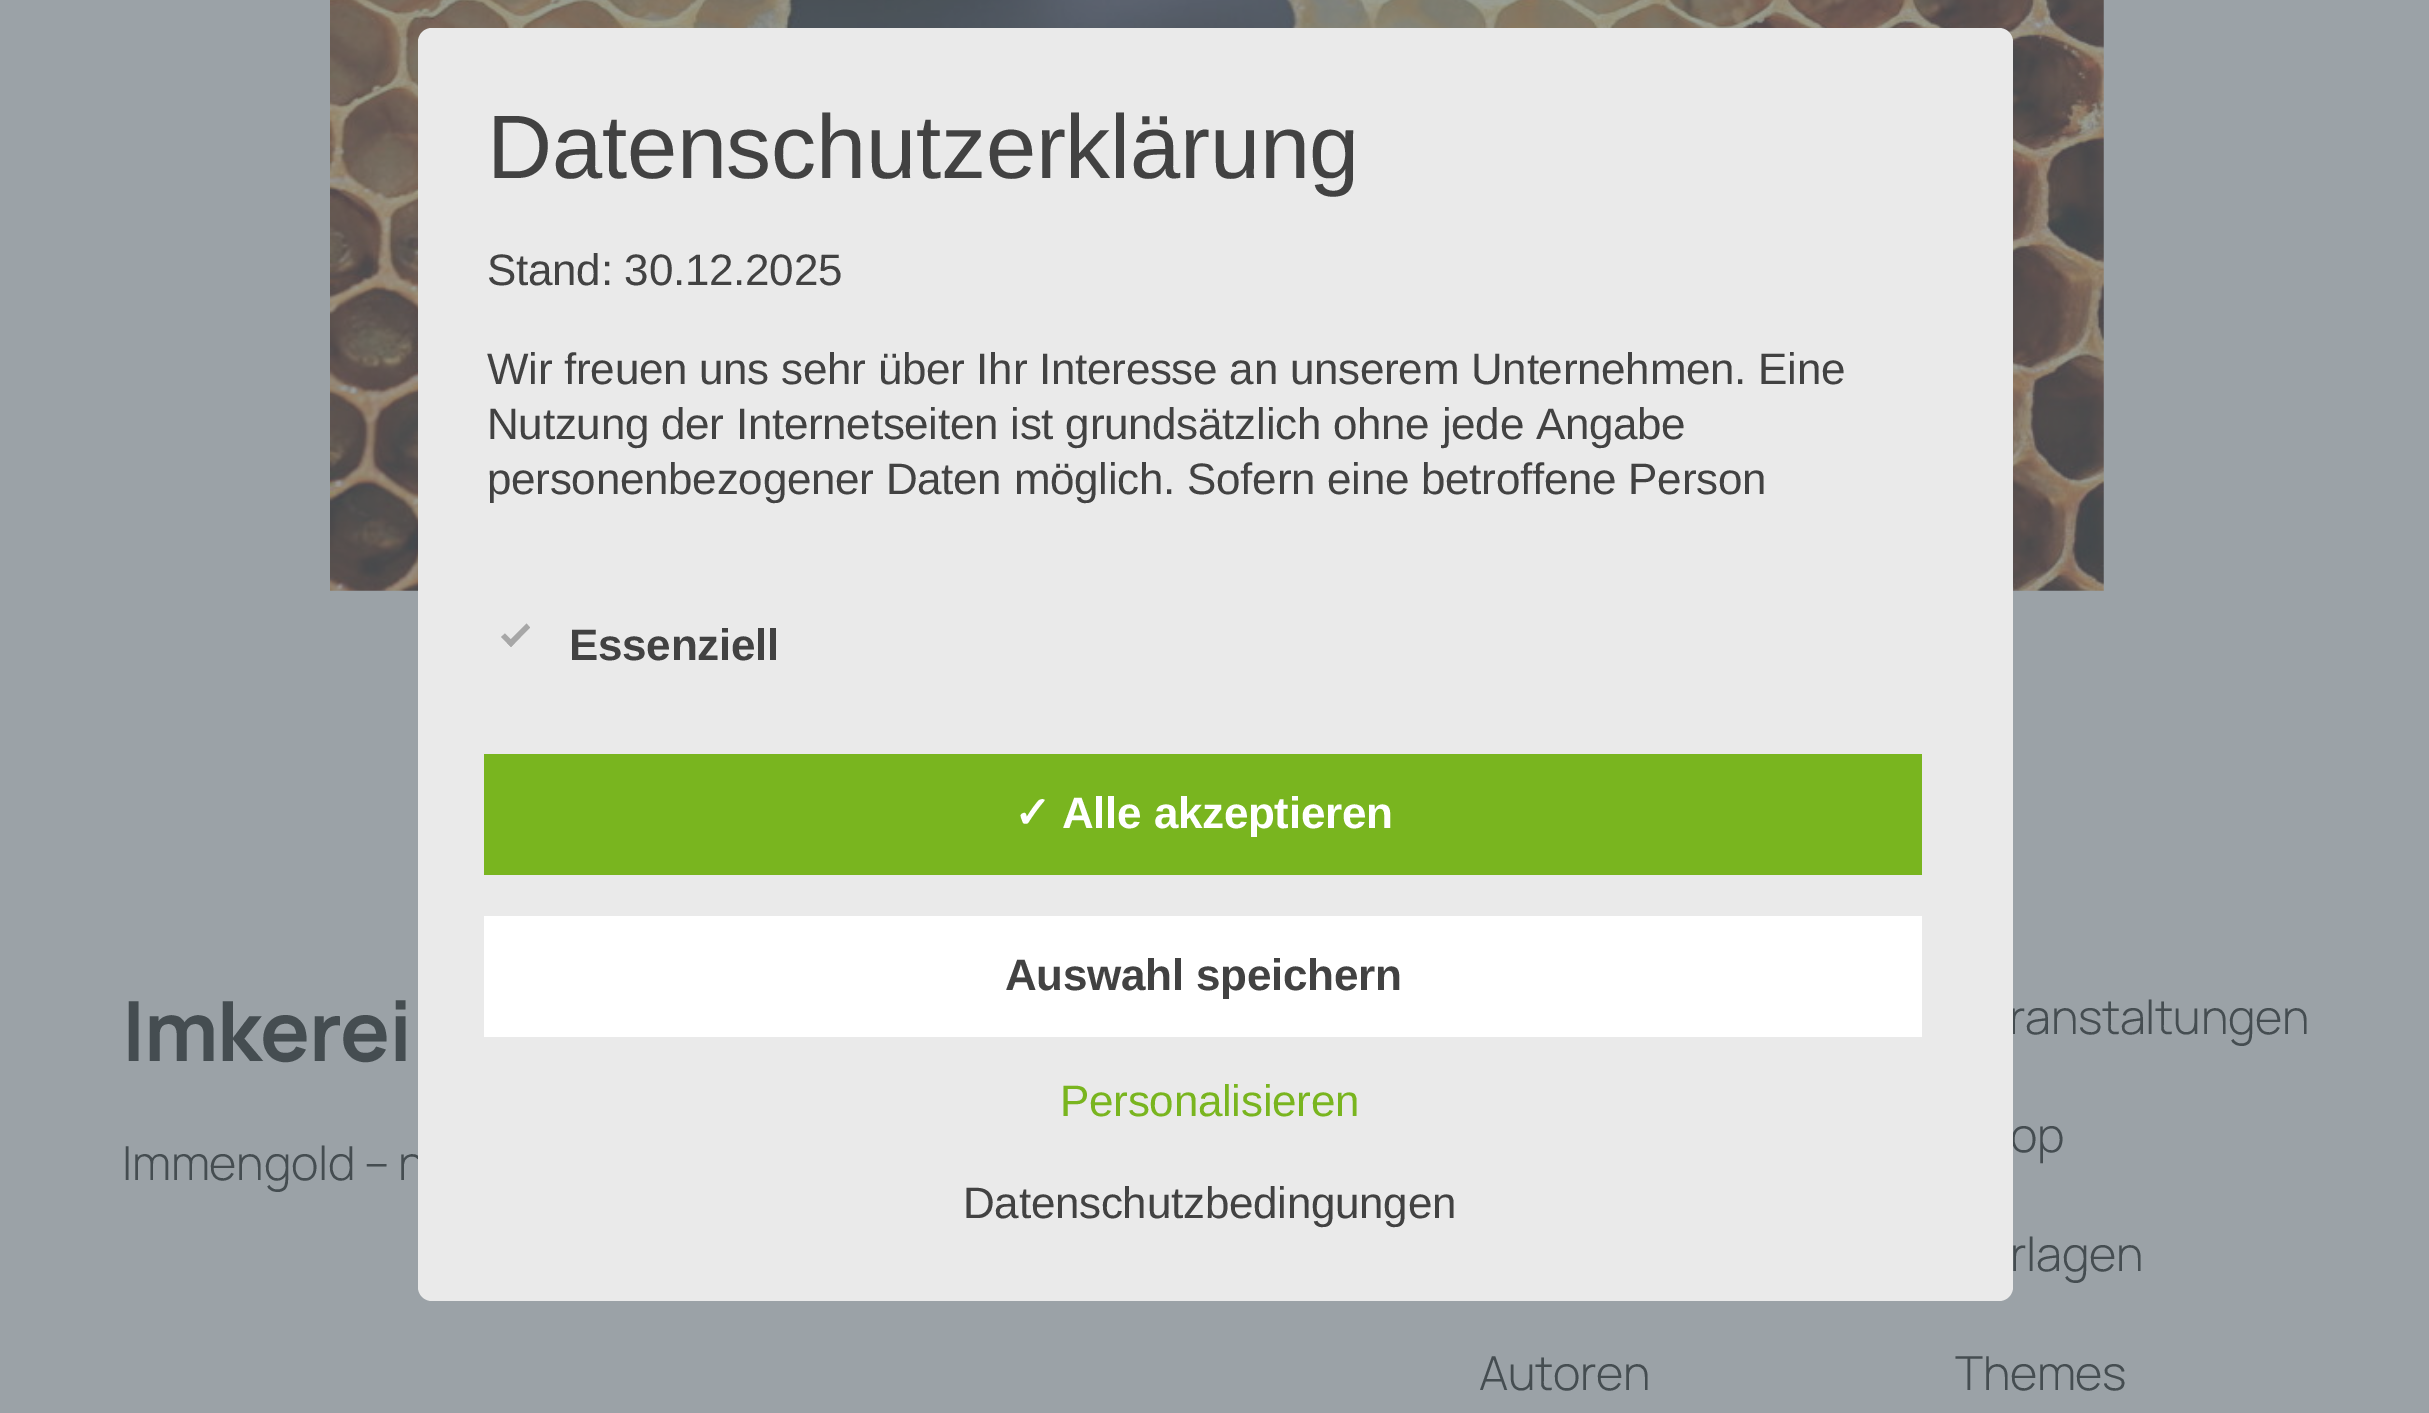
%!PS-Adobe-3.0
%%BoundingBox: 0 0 2429 1413
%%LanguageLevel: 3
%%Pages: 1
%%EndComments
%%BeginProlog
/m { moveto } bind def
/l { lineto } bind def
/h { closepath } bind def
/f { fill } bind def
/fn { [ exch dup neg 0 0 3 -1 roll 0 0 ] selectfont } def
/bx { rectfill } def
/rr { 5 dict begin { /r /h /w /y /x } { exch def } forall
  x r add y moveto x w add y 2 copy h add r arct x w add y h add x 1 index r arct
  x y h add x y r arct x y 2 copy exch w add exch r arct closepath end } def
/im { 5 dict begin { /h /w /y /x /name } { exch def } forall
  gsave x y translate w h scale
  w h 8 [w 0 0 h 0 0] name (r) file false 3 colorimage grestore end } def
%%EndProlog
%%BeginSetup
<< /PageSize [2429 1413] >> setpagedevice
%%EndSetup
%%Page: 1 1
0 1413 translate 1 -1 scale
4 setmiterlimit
0.608 0.635 0.655 setrgbcolor
0 0 2429 1413 bx
(image0.raw) 330 0 1774 591 im
/Manrope-Light 47 fn
0.271 0.302 0.318 setrgbcolor
122 1180 m -0.28 0 (Immengold – n) ashow
2009 1034 m -0.28 0 (ranstaltungen) ashow
2010 1152 m -0.28 0 (op) ashow
2010 1271 m -0.28 0 (rlagen) ashow
0.918 setgray
418 28 1595 1273 14 rr f
/LiberationSans-Regular 90.25 fn
0.259 setgray
487 178 m -0.28 0 (Datenschutzerklärung) ashow
/LiberationSans-Regular 44 fn
487 285 m -0.28 0 (Stand: 30.12.2025) ashow
487 384 m -0.28 0 (Wir freuen uns sehr über Ihr Interesse an unserem Unternehmen. Eine) ashow
487 439 m -0.28 0 (Nutzung der Internetseiten ist grundsätzlich ohne jede Angabe) ashow
487 494 m -0.28 0 (personenbezogener Daten möglich. Sofern eine betroffene Person) ashow
0.655 setgray
526.5 623.5 m 530 627.5 l 511 647 l 507 643 l h f
505 633.5 m 514.5 643 l 511 647 l 501 637 l h f
/LiberationSans-Bold 44 fn
0.259 setgray
569 660 m -0.28 0 (Essenziell) ashow
0.475 0.71 0.122 setrgbcolor
484 754 1438 121 bx
/DejaVuSans-Bold 44 fn
1 setgray
1014 828 m -0.28 0 (✓) ashow
/LiberationSans-Bold 44 fn
1062 828 m -0.28 0 (Alle akzeptieren) ashow
484 916 1438 121 bx
0.259 setgray
1005 990 m -0.28 0 (Auswahl speichern) ashow
/LiberationSans-Regular 44 fn
0.475 0.71 0.122 setrgbcolor
1060 1116 m -0.28 0 (Personalisieren) ashow
0.259 setgray
963 1218 m -0.28 0 (Datenschutzbedingungen) ashow
/Manrope-Bold 83 fn
0.271 0.302 0.318 setrgbcolor
122 1061 m -1.5 0 (Imkerei) ashow
/Manrope-Light 47 fn
1479 1390 m -0.28 0 (Autoren) ashow
1955 1390 m -0.28 0 (Themes) ashow
showpage
%%EOF
